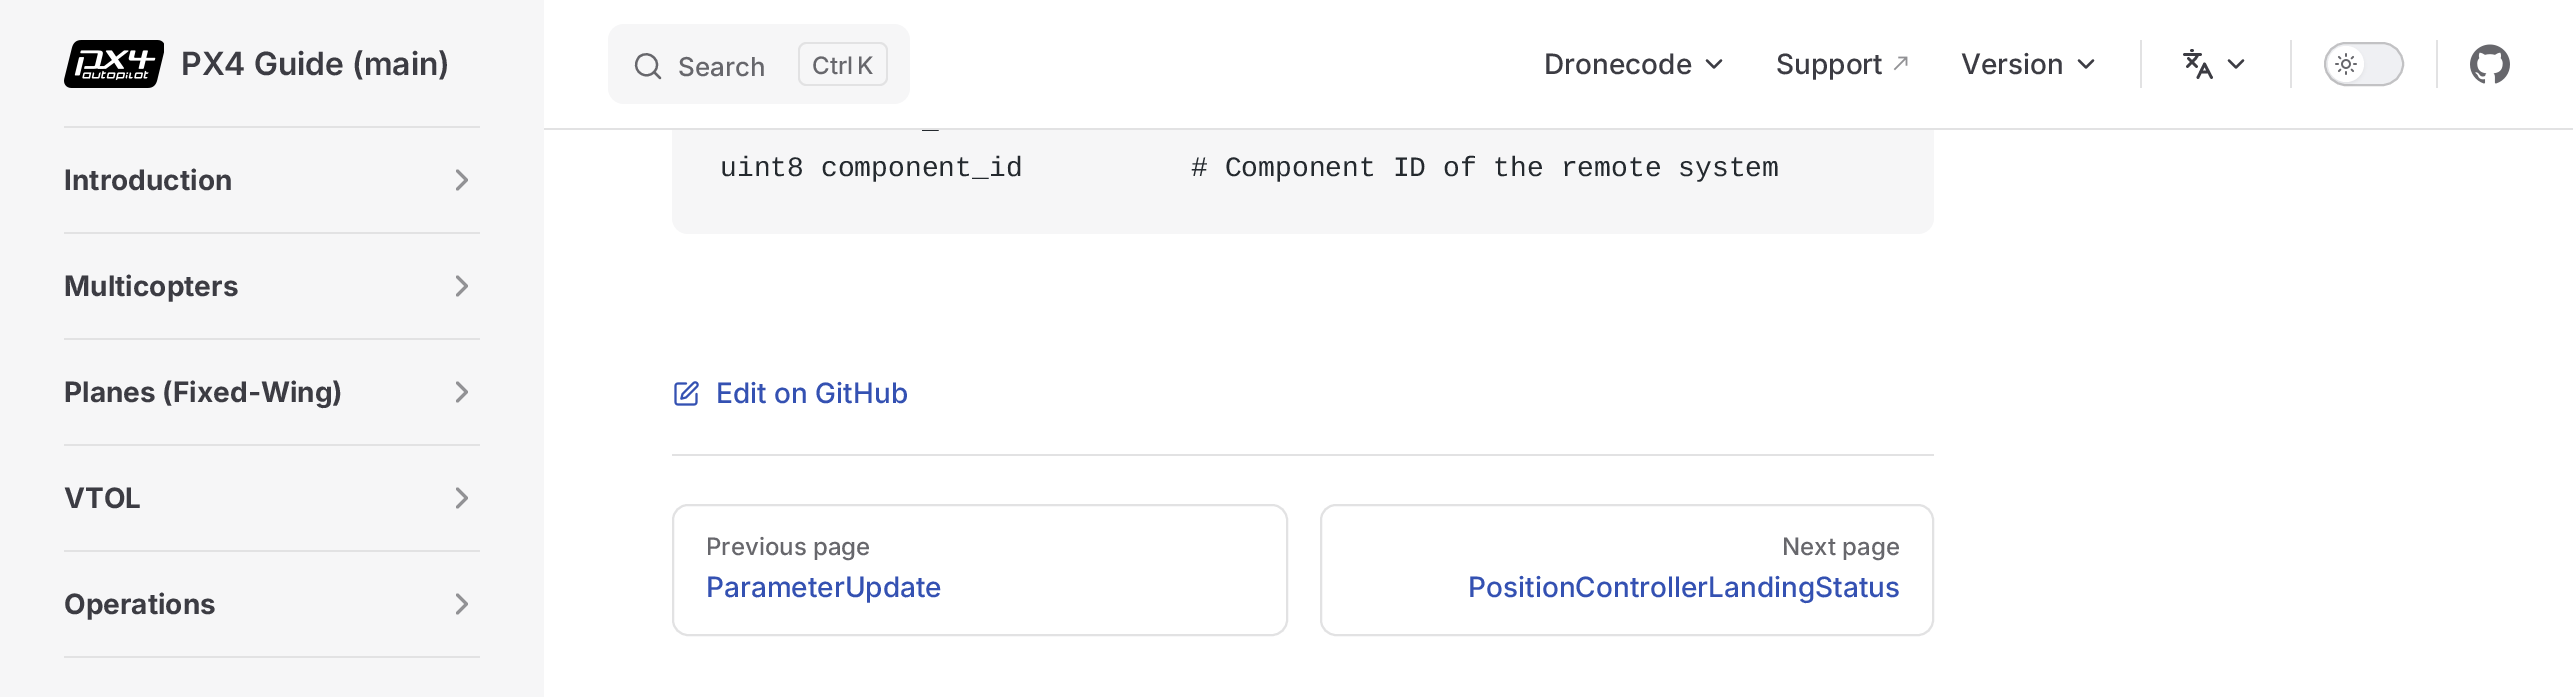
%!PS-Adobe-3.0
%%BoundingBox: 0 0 2573 697
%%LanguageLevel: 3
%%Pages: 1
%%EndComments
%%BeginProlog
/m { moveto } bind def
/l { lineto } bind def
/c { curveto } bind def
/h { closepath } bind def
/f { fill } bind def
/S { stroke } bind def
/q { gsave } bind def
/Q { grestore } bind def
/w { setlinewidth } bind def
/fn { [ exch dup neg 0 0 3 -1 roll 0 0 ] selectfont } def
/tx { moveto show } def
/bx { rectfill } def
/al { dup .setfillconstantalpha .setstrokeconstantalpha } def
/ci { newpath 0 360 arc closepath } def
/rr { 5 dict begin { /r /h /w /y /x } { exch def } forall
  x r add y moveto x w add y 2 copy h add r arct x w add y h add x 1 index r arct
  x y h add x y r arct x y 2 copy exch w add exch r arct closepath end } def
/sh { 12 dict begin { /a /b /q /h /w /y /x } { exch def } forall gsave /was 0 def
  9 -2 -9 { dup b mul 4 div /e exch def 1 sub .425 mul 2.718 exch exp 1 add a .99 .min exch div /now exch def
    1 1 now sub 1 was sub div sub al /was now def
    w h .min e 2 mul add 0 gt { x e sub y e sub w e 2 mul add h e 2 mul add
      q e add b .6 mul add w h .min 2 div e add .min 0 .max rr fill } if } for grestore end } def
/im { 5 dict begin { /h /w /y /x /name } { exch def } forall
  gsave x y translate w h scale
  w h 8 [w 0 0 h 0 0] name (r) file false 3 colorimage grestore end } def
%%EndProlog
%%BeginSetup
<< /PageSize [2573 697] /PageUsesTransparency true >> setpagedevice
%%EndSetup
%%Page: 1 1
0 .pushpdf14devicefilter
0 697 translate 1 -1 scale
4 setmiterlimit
1 setgray
0 0 2573 697 bx
0.965 0.965 0.969 setrgbcolor
0 0 544 697 bx
0.886 0.886 0.89 setrgbcolor
64 126 416 2 bx
(image0.raw) 64 40 100 48 im
/Inter-SemiBold 32 fn
0.235 0.235 0.263 setrgbcolor
(PX4 Guide \(main\)) 181 75 tx
0.965 0.965 0.969 setrgbcolor
672 -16 1262 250 16 rr f
1 setgray
672 0 1262 128 bx
0.965 0.965 0.969 setrgbcolor
608 24 302 80 16 rr f
0.404 0.404 0.424 setrgbcolor
2.2 w
1 setlinecap
1 setlinejoin
654 72 m 660 78 l 654 72 l 646.5 80 633.5 72.5 636.5 62 c 637 60 638 58.5 639 57 c 649.5 48 663.5 62.5 654 72 c h S
/Inter-Medium 26 fn
(Search) 678 76 tx
0.886 0.886 0.89 setrgbcolor
806 42 m 852 42 l 852 86 l 806 86 l 802 86 798 82 798 78 c 798 50 l 798 46 802 42 806 42 c h 806 44 m 852 44 l 852 84 l 806 84 l 803 84 800 81 800 78 c 800 50 l 800 47 803 44 806 44 c h eofill
/Inter-Medium 24 fn
0.404 0.404 0.424 setrgbcolor
(Ctrl) 812 74 tx
0.886 0.886 0.89 setrgbcolor
852 42 m 880 42 l 884 42 888 46 888 50 c 888 78 l 888 82 884 86 880 86 c 852 86 l h 852 44 m 880 44 l 883 44 886 47 886 50 c 886 78 l 886 81 883 84 880 84 c 852 84 l h eofill
0.404 0.404 0.424 setrgbcolor
(K) 857 74 tx
/Inter-Medium 28 fn
0.235 0.235 0.263 setrgbcolor
(Dronecode) 1544 74 tx
2.3 w
1707 60.5 m 1714 67.5 l 1721 60.5 l S
(Support) 1776 74 tx
(image1.raw) 1893 56 15 15 im
(Version) 1961 74 tx
2079 60.5 m 2086 67.5 l 2093 60.5 l S
0.886 0.886 0.89 setrgbcolor
2140 40 2 48 bx
0.235 0.235 0.263 setrgbcolor
2.7 w
2188.5 58.5 m 2196.5 66.5 l 2187.5 66.5 m 2195.5 58.5 l 2198 54.5 l 2184.5 54.5 m 2200.5 54.5 l 2191.5 50.5 m 2192.5 50.5 l 2211.5 77.5 m 2204.5 64 l 2198 77.5 l 2200.5 72 m 2208.5 72 l S
2.3 w
2229 60.5 m 2236 67.5 l 2243 60.5 l S
0.886 0.886 0.89 setrgbcolor
2290 40 2 48 bx
0.937 0.941 0.953 setrgbcolor
2325 43 78 42 21 rr q f Q
0.761 0.761 0.769 setrgbcolor
2 w
0 setlinecap
0 setlinejoin
S
0 setgray
2328 48 36 36 18 2 0.06 sh
1 setgray
2346 64 18 ci f
(image2.raw) 2335 53 22 22 im
0.886 0.886 0.89 setrgbcolor
2436 40 2 48 bx
(image3.raw) 2470 44 40 40 im
/LiberationMono-Regular 28 fn
0.141 0.161 0.18 setrgbcolor
(_) 922 128 tx
0.886 0.886 0.89 setrgbcolor
544 128 2029 2 bx
/Inter-Bold 28 fn
0.235 0.235 0.263 setrgbcolor
(Introduction) 64 190 tx
0.573 0.573 0.584 setrgbcolor
3 w
1 setlinecap
1 setlinejoin
457.5 189 m 466.5 180 l 457.5 171 l S
0.886 0.886 0.89 setrgbcolor
64 232 416 2 bx
0.235 0.235 0.263 setrgbcolor
(Multicopters) 64 296 tx
0.573 0.573 0.584 setrgbcolor
457.5 295 m 466.5 286 l 457.5 277 l S
0.886 0.886 0.89 setrgbcolor
64 338 416 2 bx
0.235 0.235 0.263 setrgbcolor
(Planes \(Fixed-Wing\)) 64 402 tx
0.573 0.573 0.584 setrgbcolor
457.5 401 m 466.5 392 l 457.5 383 l S
0.886 0.886 0.89 setrgbcolor
64 444 416 2 bx
0.235 0.235 0.263 setrgbcolor
(VTOL) 64 508 tx
0.573 0.573 0.584 setrgbcolor
457.5 507 m 466.5 498 l 457.5 489 l S
0.886 0.886 0.89 setrgbcolor
64 550 416 2 bx
0.235 0.235 0.263 setrgbcolor
(Operations) 64 614 tx
0.573 0.573 0.584 setrgbcolor
457.5 613 m 466.5 604 l 457.5 595 l S
0.886 0.886 0.89 setrgbcolor
64 656 416 2 bx
/LiberationMono-Regular 28 fn
0.141 0.161 0.18 setrgbcolor
(uint8 component_id) 720 176 tx
(# Component ID of the remote system) 1191 176 tx
(image4.raw) 674 381 25 25 im
/Inter-Medium 28 fn
0.204 0.318 0.698 setrgbcolor
(Edit on GitHub) 716 403 tx
0.886 0.886 0.89 setrgbcolor
672 454 1262 2 bx
2 w
0 setlinecap
0 setlinejoin
673 505 614 130 15 rr S
/Inter-Medium 24 fn
0.404 0.404 0.424 setrgbcolor
(Previous page) 706 555 tx
/Inter-Medium 28 fn
0.204 0.318 0.698 setrgbcolor
(ParameterUpdate) 706 597 tx
0.886 0.886 0.89 setrgbcolor
1321 505 612 130 15 rr S
/Inter-Medium 24 fn
0.404 0.404 0.424 setrgbcolor
(Next page) 1782 555 tx
/Inter-Medium 28 fn
0.204 0.318 0.698 setrgbcolor
(PositionControllerLandingStatus) 1468 597 tx
.poppdf14devicefilter showpage
%%EOF
